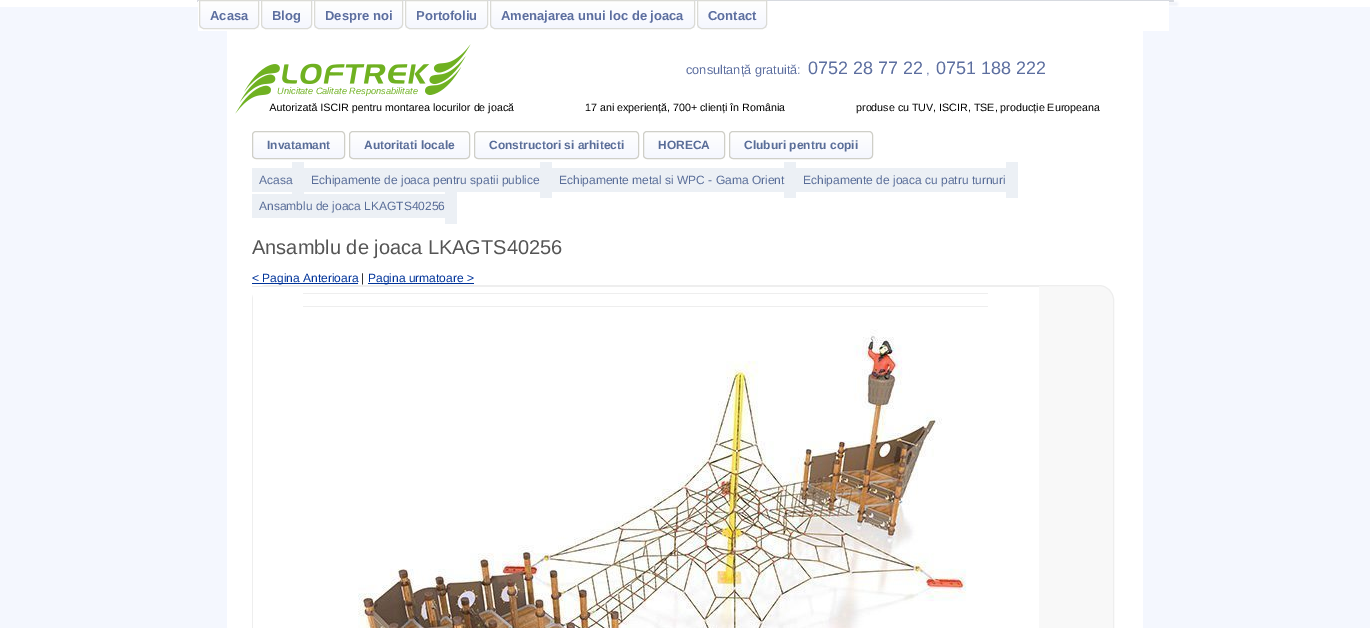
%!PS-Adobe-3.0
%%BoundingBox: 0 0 1370 628
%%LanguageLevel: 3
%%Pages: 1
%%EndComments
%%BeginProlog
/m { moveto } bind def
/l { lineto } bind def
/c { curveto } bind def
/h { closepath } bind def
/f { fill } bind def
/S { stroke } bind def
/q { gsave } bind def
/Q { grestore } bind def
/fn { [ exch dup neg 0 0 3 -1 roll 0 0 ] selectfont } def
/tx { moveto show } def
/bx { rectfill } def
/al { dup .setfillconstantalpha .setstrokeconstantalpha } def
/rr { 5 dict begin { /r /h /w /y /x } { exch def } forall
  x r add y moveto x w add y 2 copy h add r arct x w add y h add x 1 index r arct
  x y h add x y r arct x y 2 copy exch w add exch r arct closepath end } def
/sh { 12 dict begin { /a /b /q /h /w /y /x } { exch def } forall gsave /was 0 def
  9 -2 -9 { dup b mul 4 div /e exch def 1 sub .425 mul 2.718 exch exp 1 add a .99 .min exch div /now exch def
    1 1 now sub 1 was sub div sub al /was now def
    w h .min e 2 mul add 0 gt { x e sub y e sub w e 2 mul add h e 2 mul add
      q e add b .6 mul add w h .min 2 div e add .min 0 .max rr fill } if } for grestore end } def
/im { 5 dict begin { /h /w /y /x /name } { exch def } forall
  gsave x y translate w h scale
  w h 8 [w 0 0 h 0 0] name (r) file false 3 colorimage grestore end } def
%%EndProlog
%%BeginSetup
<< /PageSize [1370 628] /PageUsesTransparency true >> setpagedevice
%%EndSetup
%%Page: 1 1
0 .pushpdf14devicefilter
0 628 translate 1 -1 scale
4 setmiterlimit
1 setgray
0 0 1370 628 bx
0.914 0.929 0.961 setrgbcolor
200 3 977 2 1 1.5 1 sh
0.957 0.969 0.996 setrgbcolor
0 7 1370 621 bx
0.843 0.855 0.878 setrgbcolor
197 0 977 2 1 rr f
1 setgray
198 1 971 30 bx
q
199 0 m 259 0 l 259 24 l 259 27 257 29 254 29 c 204 29 l 201 29 199 27 199 24 c h clip newpath
q 199 1 m 259 1 l 259 28 l 199 28 l h clip newpath
<< /ShadingType 2 /ColorSpace /DeviceRGB /Coords [229 1 229 28] /Extend [true true] /Function << /FunctionType 2 /Domain [0 1] /C0 [1 1 1] /C1 [0.961 0.969 0.996] /N 1 >> >> shfill Q
Q
0.859 0.859 0.839 setrgbcolor
199.5 0.5 m 258.5 0.5 l 258.5 24 l 258.5 26.5 256.5 28.5 254 28.5 c 204 28.5 l 201.5 28.5 199.5 26.5 199.5 24 c h S
/LiberationSans-Bold 13 fn
0.361 0.431 0.624 setrgbcolor
(Acasa) 210 20 tx
q
261 0 m 312 0 l 312 24 l 312 27 310 29 307 29 c 266 29 l 263 29 261 27 261 24 c h clip newpath
q 261 1 m 312 1 l 312 28 l 261 28 l h clip newpath
<< /ShadingType 2 /ColorSpace /DeviceRGB /Coords [287 1 287 28] /Extend [true true] /Function << /FunctionType 2 /Domain [0 1] /C0 [1 1 1] /C1 [0.961 0.969 0.996] /N 1 >> >> shfill Q
Q
0.859 0.859 0.839 setrgbcolor
261.5 0.5 m 311.5 0.5 l 311.5 24 l 311.5 26.5 309.5 28.5 307 28.5 c 266 28.5 l 263.5 28.5 261.5 26.5 261.5 24 c h S
0.361 0.431 0.624 setrgbcolor
(Blog) 272 20 tx
q
314 0 m 403 0 l 403 24 l 403 27 401 29 398 29 c 319 29 l 316 29 314 27 314 24 c h clip newpath
q 314 1 m 403 1 l 403 28 l 314 28 l h clip newpath
<< /ShadingType 2 /ColorSpace /DeviceRGB /Coords [359 1 359 28] /Extend [true true] /Function << /FunctionType 2 /Domain [0 1] /C0 [1 1 1] /C1 [0.961 0.969 0.996] /N 1 >> >> shfill Q
Q
0.859 0.859 0.839 setrgbcolor
314.5 0.5 m 402.5 0.5 l 402.5 24 l 402.5 26.5 400.5 28.5 398 28.5 c 319 28.5 l 316.5 28.5 314.5 26.5 314.5 24 c h S
0.361 0.431 0.624 setrgbcolor
(Despre noi) 325 20 tx
q
405 0 m 488 0 l 488 24 l 488 27 486 29 483 29 c 410 29 l 407 29 405 27 405 24 c h clip newpath
q 405 1 m 488 1 l 488 28 l 405 28 l h clip newpath
<< /ShadingType 2 /ColorSpace /DeviceRGB /Coords [447 1 447 28] /Extend [true true] /Function << /FunctionType 2 /Domain [0 1] /C0 [1 1 1] /C1 [0.961 0.969 0.996] /N 1 >> >> shfill Q
Q
0.859 0.859 0.839 setrgbcolor
405.5 0.5 m 487.5 0.5 l 487.5 24 l 487.5 26.5 485.5 28.5 483 28.5 c 410 28.5 l 407.5 28.5 405.5 26.5 405.5 24 c h S
0.361 0.431 0.624 setrgbcolor
(Portofoliu) 416 20 tx
q
490 0 m 695 0 l 695 24 l 695 27 693 29 690 29 c 495 29 l 492 29 490 27 490 24 c h clip newpath
q 490 1 m 695 1 l 695 28 l 490 28 l h clip newpath
<< /ShadingType 2 /ColorSpace /DeviceRGB /Coords [593 1 593 28] /Extend [true true] /Function << /FunctionType 2 /Domain [0 1] /C0 [1 1 1] /C1 [0.961 0.969 0.996] /N 1 >> >> shfill Q
Q
0.859 0.859 0.839 setrgbcolor
490.5 0.5 m 694.5 0.5 l 694.5 24 l 694.5 26.5 692.5 28.5 690 28.5 c 495 28.5 l 492.5 28.5 490.5 26.5 490.5 24 c h S
0.361 0.431 0.624 setrgbcolor
(Amenajarea unui loc de joaca) 501 20 tx
q
697 0 m 767 0 l 767 24 l 767 27 765 29 762 29 c 702 29 l 699 29 697 27 697 24 c h clip newpath
q 697 1 m 767 1 l 767 28 l 697 28 l h clip newpath
<< /ShadingType 2 /ColorSpace /DeviceRGB /Coords [732 1 732 28] /Extend [true true] /Function << /FunctionType 2 /Domain [0 1] /C0 [1 1 1] /C1 [0.961 0.969 0.996] /N 1 >> >> shfill Q
Q
0.859 0.859 0.839 setrgbcolor
697.5 0.5 m 766.5 0.5 l 766.5 24 l 766.5 26.5 764.5 28.5 762 28.5 c 702 28.5 l 699.5 28.5 697.5 26.5 697.5 24 c h S
0.361 0.431 0.624 setrgbcolor
(Contact) 708 20 tx
1 setgray
227 31 916 597 bx
/LiberationSans-Regular 12.75 fn
0.361 0.431 0.624 setrgbcolor
(consultanță gratuită:) 686 74 tx
/LiberationSans-Regular 18 fn
(0752 28 77 22) 808 74 tx
/LiberationSans-Regular 12.75 fn
(,) 926 74 tx
/LiberationSans-Regular 18 fn
(0751 188 222) 936 74 tx
/LiberationSans-Regular 10.7 fn
0 setgray
(Autorizată ISCIR pentru montarea locurilor de joacă) 269 111 tx
(image0.raw) 235 44 236 70 im
/LiberationSans-Italic 9.25 fn
0.435 0.694 0.129 setrgbcolor
(Unicitate Calitate Responsabilitate) 277 94 tx
/LiberationSans-Regular 10.7 fn
0 setgray
(17 ani experiență, 700+ clienți în România) 585 111 tx
(produse cu TUV, ISCIR, TSE, producție Europeana) 856 111 tx
q
252 131 93 28 4 rr clip newpath
q 252 132 m 345 132 l 345 158 l 252 158 l h clip newpath
<< /ShadingType 2 /ColorSpace /DeviceRGB /Coords [299 132 299 158] /Extend [true true] /Function << /FunctionType 2 /Domain [0 1] /C0 [1 1 1] /C1 [0.961 0.969 0.996] /N 1 >> >> shfill Q
Q
0.812 0.812 0.784 setrgbcolor
252.5 131.5 92 27 3.5 rr S
/LiberationSans-Bold 12 fn
0.349 0.427 0.596 setrgbcolor
(Invatamant) 267 149 tx
q
349 131 121 28 4 rr clip newpath
q 349 132 m 470 132 l 470 158 l 349 158 l h clip newpath
<< /ShadingType 2 /ColorSpace /DeviceRGB /Coords [410 132 410 158] /Extend [true true] /Function << /FunctionType 2 /Domain [0 1] /C0 [1 1 1] /C1 [0.961 0.969 0.996] /N 1 >> >> shfill Q
Q
0.812 0.812 0.784 setrgbcolor
349.5 131.5 120 27 3.5 rr S
0.349 0.427 0.596 setrgbcolor
(Autoritati locale) 364 149 tx
q
474 131 165 28 4 rr clip newpath
q 474 132 m 639 132 l 639 158 l 474 158 l h clip newpath
<< /ShadingType 2 /ColorSpace /DeviceRGB /Coords [557 132 557 158] /Extend [true true] /Function << /FunctionType 2 /Domain [0 1] /C0 [1 1 1] /C1 [0.961 0.969 0.996] /N 1 >> >> shfill Q
Q
0.812 0.812 0.784 setrgbcolor
474.5 131.5 164 27 3.5 rr S
0.349 0.427 0.596 setrgbcolor
(Constructori si arhitecti) 489 149 tx
q
643 131 82 28 4 rr clip newpath
q 643 132 m 725 132 l 725 158 l 643 158 l h clip newpath
<< /ShadingType 2 /ColorSpace /DeviceRGB /Coords [684 132 684 158] /Extend [true true] /Function << /FunctionType 2 /Domain [0 1] /C0 [1 1 1] /C1 [0.961 0.969 0.996] /N 1 >> >> shfill Q
Q
0.812 0.812 0.784 setrgbcolor
643.5 131.5 81 27 3.5 rr S
0.349 0.427 0.596 setrgbcolor
(HORECA) 658 149 tx
q
729 131 144 28 4 rr clip newpath
q 729 132 m 873 132 l 873 158 l 729 158 l h clip newpath
<< /ShadingType 2 /ColorSpace /DeviceRGB /Coords [801 132 801 158] /Extend [true true] /Function << /FunctionType 2 /Domain [0 1] /C0 [1 1 1] /C1 [0.961 0.969 0.996] /N 1 >> >> shfill Q
Q
0.812 0.812 0.784 setrgbcolor
729.5 131.5 143 27 3.5 rr S
0.349 0.427 0.596 setrgbcolor
(Cluburi pentru copii) 744 149 tx
0.925 0.941 0.961 setrgbcolor
252 168 40 24 bx
292 162 12 32 bx
/LiberationSans-Regular 12 fn
0.349 0.427 0.596 setrgbcolor
(Acasa) 259 184 tx
0.925 0.941 0.961 setrgbcolor
304 168 236 24 bx
0.349 0.427 0.596 setrgbcolor
(Echipamente de joaca pentru spatii publice) 311 184 tx
0.925 0.941 0.961 setrgbcolor
540 162 12 36 bx
552 168 232 24 bx
784 162 12 36 bx
0.349 0.427 0.596 setrgbcolor
(Echipamente metal si WPC - Gama Orient) 559 184 tx
0.925 0.941 0.961 setrgbcolor
796 168 210 24 bx
0.349 0.427 0.596 setrgbcolor
(Echipamente de joaca cu patru turnuri) 803 184 tx
0.925 0.941 0.961 setrgbcolor
1006 162 12 36 bx
252 194 193 24 bx
0.349 0.427 0.596 setrgbcolor
(Ansamblu de joaca LKAGTS40256) 259 210 tx
0.925 0.941 0.961 setrgbcolor
445 192 12 32 bx
/LiberationSans-Regular 20 fn
0.333 setgray
(Ansamblu de joaca LKAGTS40256) 252 254 tx
0 0.2 0.6 setrgbcolor
252 283 106 1 bx
/LiberationSans-Regular 12 fn
(< Pagina Anterioara) 252 282 tx
0.2 setgray
(|) 361 282 tx
0 0.2 0.6 setrgbcolor
368 283 106 1 bx
(Pagina urmatoare >) 368 282 tx
0.973 setgray
252.5 285.5 861 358 14.5 rr q f Q
0.933 setgray
S
1 setgray
253 287 786 341 bx
0.933 setgray
252 286 787 1 bx
303 293 685 1 bx
303 306 685 1 bx
(image1.raw) 358 329 609 299 im
.poppdf14devicefilter showpage
%%EOF
